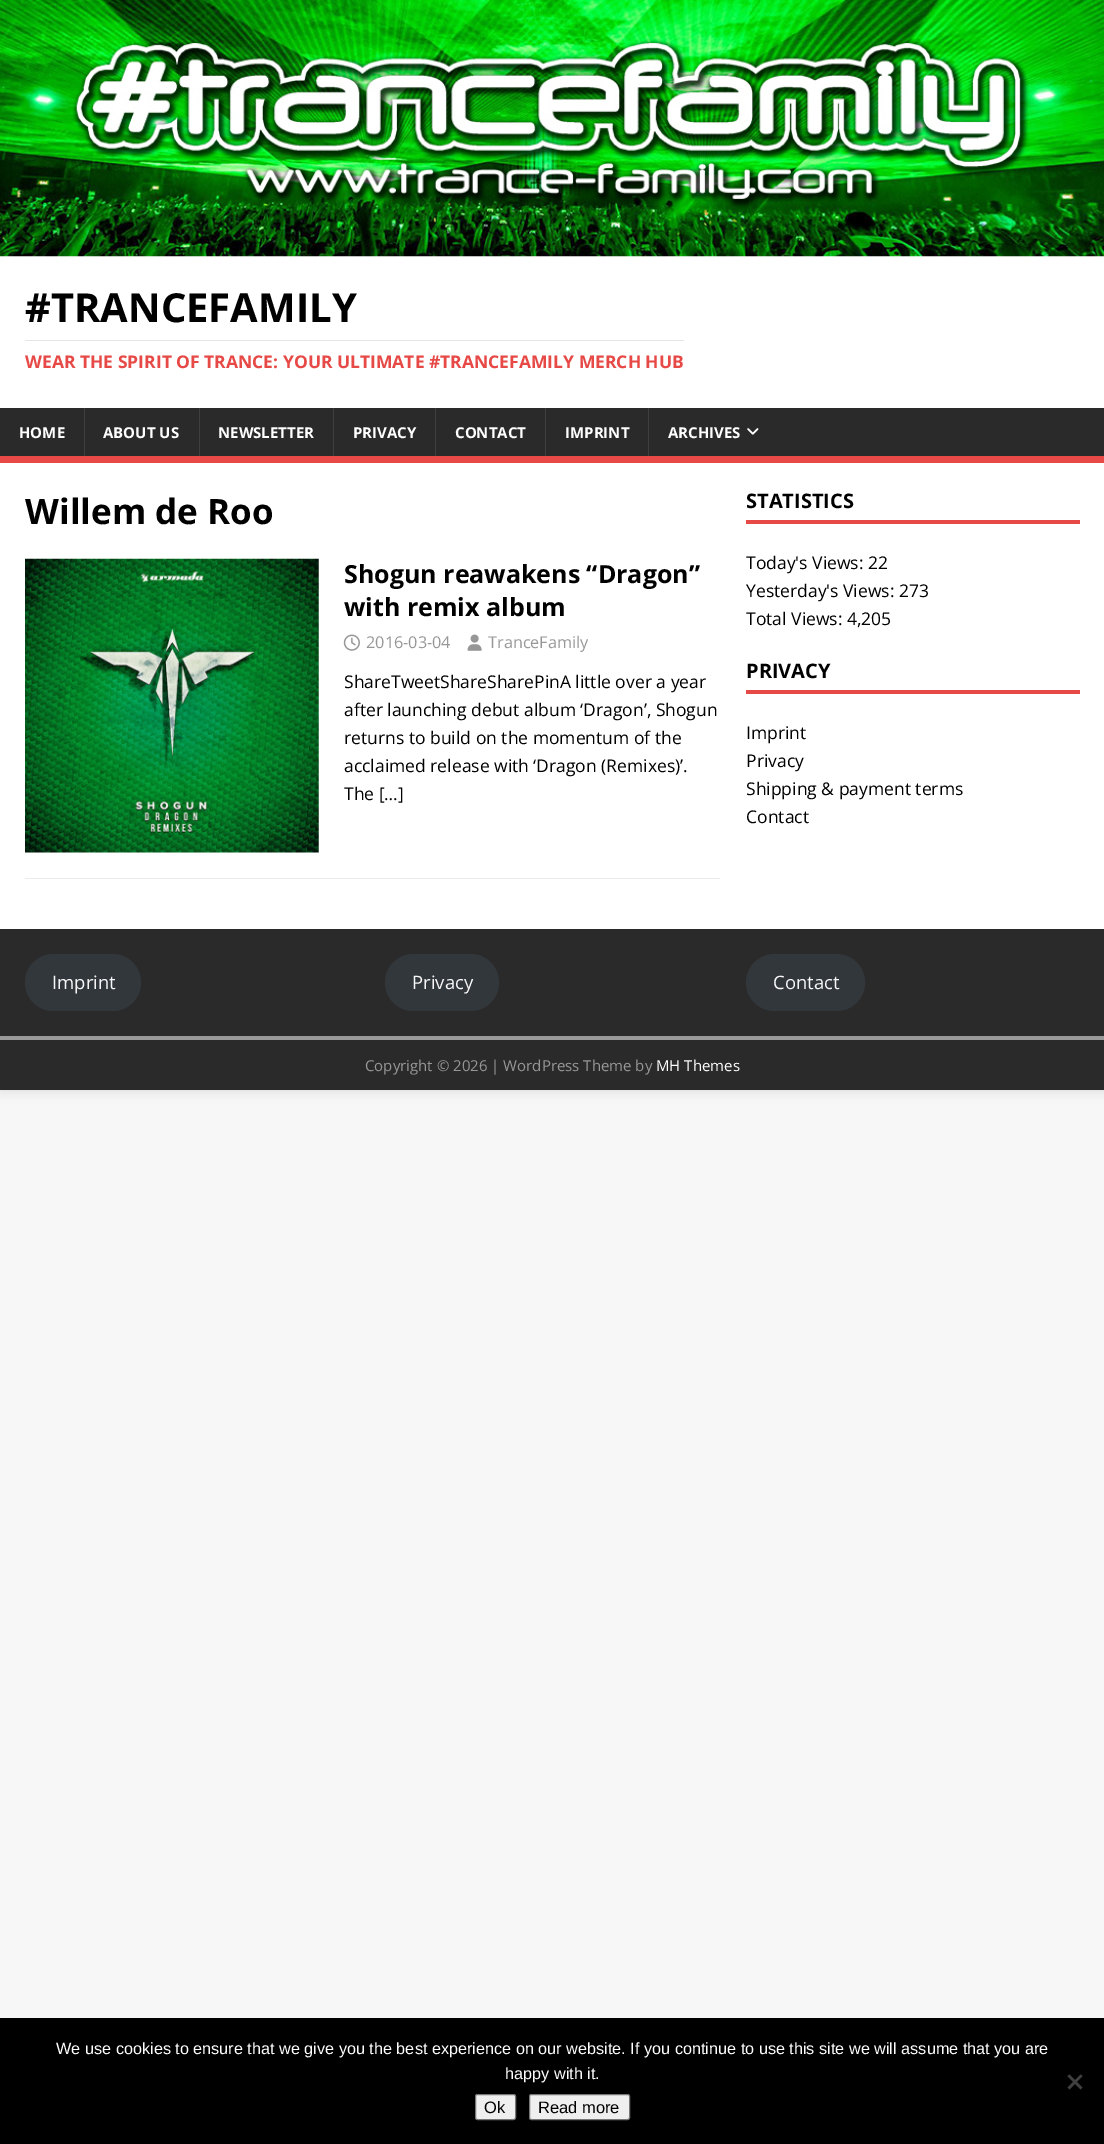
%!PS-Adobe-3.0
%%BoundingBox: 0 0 1104 2144
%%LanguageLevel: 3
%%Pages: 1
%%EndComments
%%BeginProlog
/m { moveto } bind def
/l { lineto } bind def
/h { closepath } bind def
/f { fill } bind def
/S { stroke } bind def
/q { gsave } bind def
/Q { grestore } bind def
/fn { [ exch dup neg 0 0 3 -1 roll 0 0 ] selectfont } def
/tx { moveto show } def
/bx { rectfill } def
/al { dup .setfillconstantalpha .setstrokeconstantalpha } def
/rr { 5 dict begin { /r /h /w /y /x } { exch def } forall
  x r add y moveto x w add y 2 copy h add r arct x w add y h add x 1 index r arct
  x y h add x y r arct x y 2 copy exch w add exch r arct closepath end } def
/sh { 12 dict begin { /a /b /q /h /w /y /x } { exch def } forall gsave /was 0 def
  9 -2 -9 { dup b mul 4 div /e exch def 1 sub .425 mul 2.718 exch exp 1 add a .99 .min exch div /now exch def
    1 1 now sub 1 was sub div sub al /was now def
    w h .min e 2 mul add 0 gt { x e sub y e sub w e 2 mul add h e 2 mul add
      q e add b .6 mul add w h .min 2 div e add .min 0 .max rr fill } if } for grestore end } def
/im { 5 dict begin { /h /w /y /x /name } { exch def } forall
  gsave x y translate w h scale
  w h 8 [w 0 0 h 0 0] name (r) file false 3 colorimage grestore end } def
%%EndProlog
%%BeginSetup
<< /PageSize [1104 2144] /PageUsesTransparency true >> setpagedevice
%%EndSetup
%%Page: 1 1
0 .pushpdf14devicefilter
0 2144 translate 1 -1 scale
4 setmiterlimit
0.969 setgray
0 0 1104 2144 bx
0.196 setgray
0 0 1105 1090 0 6 0.17 sh
1 setgray
0 256 1104 152 bx
(image0.raw) 0 0 1104 257 im
/OpenSans-Bold 40 fn
0 setgray
(#TRANCEFAMILY) 25 322 tx
0.898 setgray
25 340 659 1 bx
/OpenSans-Bold 17.5 fn
0.902 0.286 0.275 setrgbcolor
(WEAR THE SPIRIT OF TRANCE: YOUR ULTIMATE #TRANCEFAMILY MERCH HUB) 25 368 tx
0.165 setgray
0 408 1104 48 bx
0.902 0.286 0.275 setrgbcolor
0 456 1104 7 bx
/OpenSans-Bold 15 fn
1 setgray
(HOME) 19 438 tx
0.247 setgray
84 408 1 48 bx
1 setgray
(ABOUT US) 103 438 tx
0.247 setgray
199 408 1 48 bx
1 setgray
(NEWSLETTER) 218 438 tx
0.247 setgray
333 408 1 48 bx
1 setgray
(PRIVACY) 353 438 tx
0.247 setgray
435 408 1 48 bx
1 setgray
(CONTACT) 455 438 tx
0.247 setgray
545 408 1 48 bx
1 setgray
(IMPRINT) 565 438 tx
0.247 setgray
648 408 1 48 bx
1 setgray
(ARCHIVES) 668 438 tx
(image1.raw) 747 428 12 7 im
0 463 1104 466 bx
/OpenSans-Bold 35 fn
0 setgray
(Willem de Roo) 25 524 tx
0.922 setgray
25 878 695 1 bx
(image2.raw) 25 558 294 295 im
/OpenSans-Bold 25 fn
0 setgray
(Shogun reawakens “Dragon”) 344 583 tx
(with remix album) 344 616 tx
(image3.raw) 343 634 17 17 im
/OpenSans-Regular 16.25 fn
0.592 setgray
(2016-03-04) 366 648 tx
(image4.raw) 467 634 15 17 im
(TranceFamily) 488 648 tx
/OpenSans-Regular 17.5 fn
0 setgray
(ShareTweetShareSharePinA little over a year) 344 688 tx
(after launching debut album ‘Dragon’, Shogun) 344 716 tx
(returns to build on the momentum of the) 344 744 tx
(acclaimed release with ‘Dragon \(Remixes\)’.) 344 772 tx
(The […]) 344 800 tx
0.902 0.286 0.275 setrgbcolor
746 520 334 4 bx
/OpenSans-Bold 20 fn
0 setgray
(STATISTICS) 746 508 tx
/OpenSans-Regular 17.5 fn
(Today's Views: 22) 746 569 tx
(Yesterday's Views: 273) 746 597 tx
(Total Views: 4,205) 746 625 tx
0.902 0.286 0.275 setrgbcolor
746 690 334 4 bx
/OpenSans-Bold 20 fn
0 setgray
(PRIVACY) 746 678 tx
/OpenSans-Regular 17.5 fn
(Imprint) 746 739 tx
(Privacy) 746 767 tx
(Shipping & payment terms) 746 795 tx
(Contact) 746 823 tx
0.165 setgray
0 929 1104 107 bx
0.196 0.216 0.235 setrgbcolor
25 954 116 57 28.5 rr f
/OpenSans-Regular 18.5 fn
0.969 setgray
(Imprint) 52 989 tx
0.196 0.216 0.235 setrgbcolor
385 954 114 57 28.5 rr f
0.969 setgray
(Privacy) 412 989 tx
0.196 0.216 0.235 setrgbcolor
746 954 119 57 28.5 rr f
0.969 setgray
(Contact) 773 989 tx
0.165 setgray
0 1040 1104 50 bx
0.6 setgray
0 1036 1104 4 bx
/OpenSans-Regular 15 fn
0.592 setgray
(Copyright © 2026 | WordPress Theme by) 365 1071 tx
1 setgray
(MH Themes) 656 1071 tx
0 setgray
0 2018 1104 126 bx
/LiberationSans-Regular 16.25 fn
1 setgray
(We use cookies to ensure that we give you the best experience on our website. If you continue to use this site we will assume that you are) 56 2054 tx
(happy with it.) 505 2079 tx
0.251 setgray
1080.5 2074.5 m 1082.5 2076 l 1069.5 2089.5 l 1067.5 2087.5 l h f
1067.5 2076 m 1069.5 2074.5 l 1082.5 2087.5 l 1080.5 2089.5 l h f
0.937 setgray
475.5 2094.5 40 25 2 rr q f Q
0.463 setgray
S
/LiberationSans-Regular 16.5 fn
0 setgray
(Ok) 484 2113 tx
0.937 setgray
529.5 2094.5 100 25 2 rr q f Q
0.463 setgray
S
0 setgray
(Read more) 538 2113 tx
.poppdf14devicefilter showpage
%%EOF
